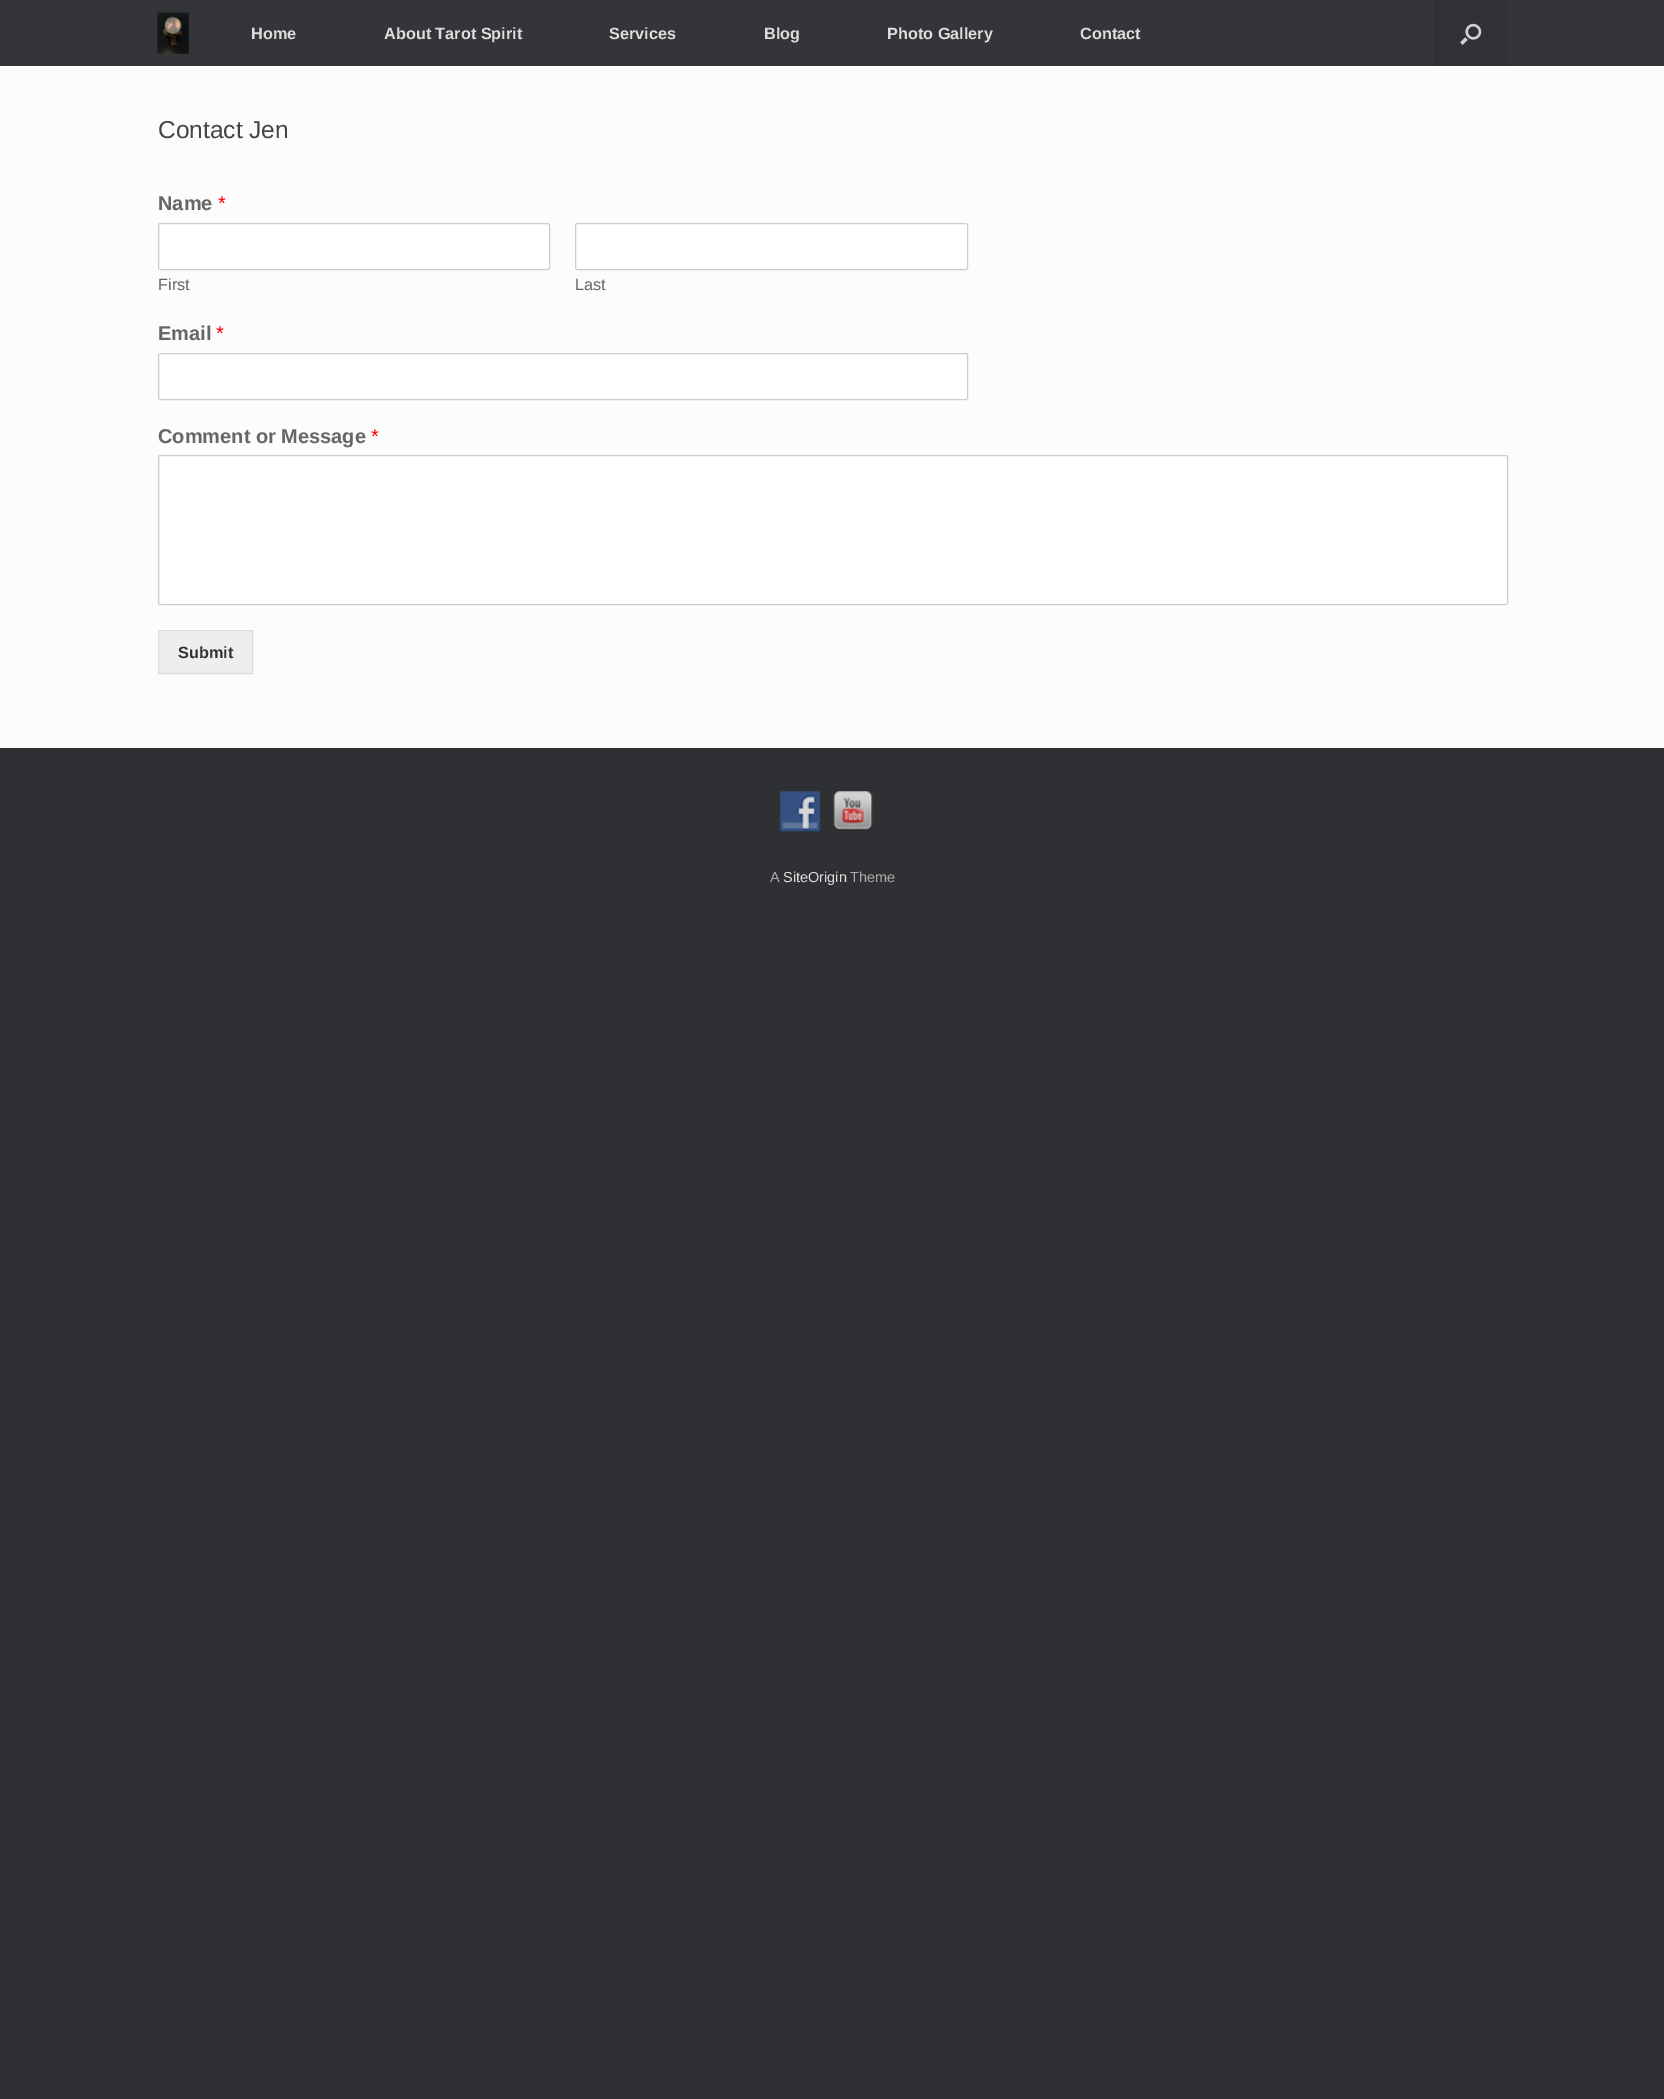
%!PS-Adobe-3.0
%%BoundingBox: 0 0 1664 2099
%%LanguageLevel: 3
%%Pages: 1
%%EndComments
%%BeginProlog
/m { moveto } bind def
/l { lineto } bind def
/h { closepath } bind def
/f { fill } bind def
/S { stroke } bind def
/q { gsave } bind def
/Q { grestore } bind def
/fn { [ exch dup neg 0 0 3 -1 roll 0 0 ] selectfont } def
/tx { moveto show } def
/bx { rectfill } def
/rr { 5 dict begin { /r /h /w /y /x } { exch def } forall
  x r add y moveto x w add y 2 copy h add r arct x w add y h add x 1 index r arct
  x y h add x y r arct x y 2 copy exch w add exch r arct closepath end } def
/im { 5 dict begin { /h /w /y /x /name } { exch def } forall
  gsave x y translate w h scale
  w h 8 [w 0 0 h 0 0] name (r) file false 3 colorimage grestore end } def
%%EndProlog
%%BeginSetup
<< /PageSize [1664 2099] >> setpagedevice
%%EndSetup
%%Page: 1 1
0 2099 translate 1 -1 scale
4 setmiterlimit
0.184 0.188 0.2 setrgbcolor
0 0 1664 2099 bx
0.204 0.208 0.22 setrgbcolor
0 0 1664 66 bx
(image0.raw) 157 12 32 42 im
/LiberationSans-Bold 16.25 fn
0.867 setgray
(Home) 251 39 tx
(About Tarot Spirit) 384 39 tx
(Services) 609 39 tx
(Blog) 764 39 tx
(Photo Gallery) 887 39 tx
(Contact) 1080 39 tx
0.188 0.192 0.204 setrgbcolor
1434 0 74 66 bx
(image1.raw) 1460 23 22 22 im
0.988 setgray
0 66 1664 682 bx
/LiberationSans-Regular 24.5 fn
0.267 setgray
(Contact Jen) 158 138 tx
/LiberationSans-Bold 20 fn
0.4 setgray
(Name) 158 210 tx
/LiberationSans-Regular 20 fn
1 0 0 setrgbcolor
(*) 218 210 tx
1 setgray
158.5 223.5 391 46 2 rr q f Q
0.8 setgray
S
/LiberationSans-Regular 16.25 fn
0.4 setgray
(First) 158 290 tx
1 setgray
575.5 223.5 392 46 2 rr q f Q
0.8 setgray
S
0.4 setgray
(Last) 575 290 tx
/LiberationSans-Bold 20 fn
(Email) 158 340 tx
/LiberationSans-Regular 20 fn
1 0 0 setrgbcolor
(*) 216 340 tx
1 setgray
158.5 353.5 809 46 2 rr q f Q
0.8 setgray
S
/LiberationSans-Bold 20 fn
0.4 setgray
(Comment or Message) 158 443 tx
/LiberationSans-Regular 20 fn
1 0 0 setrgbcolor
(*) 371 443 tx
1 setgray
158.5 455.5 1349 149 2 rr q f Q
0.8 setgray
S
0.933 setgray
158.5 630.5 m 252.5 630.5 l 252.5 673.5 l 158.5 673.5 l h q f Q
0.867 setgray
S
/LiberationSans-Bold 16.25 fn
0.2 setgray
(Submit) 178 658 tx
(image2.raw) 780 791 40 41 im
(image3.raw) 833 791 40 40 im
/LiberationSans-Regular 14.5 fn
0.667 setgray
(A) 770 882 tx
0.867 setgray
(SiteOrigin) 783 882 tx
0.667 setgray
(Theme) 850 882 tx
showpage
%%EOF
